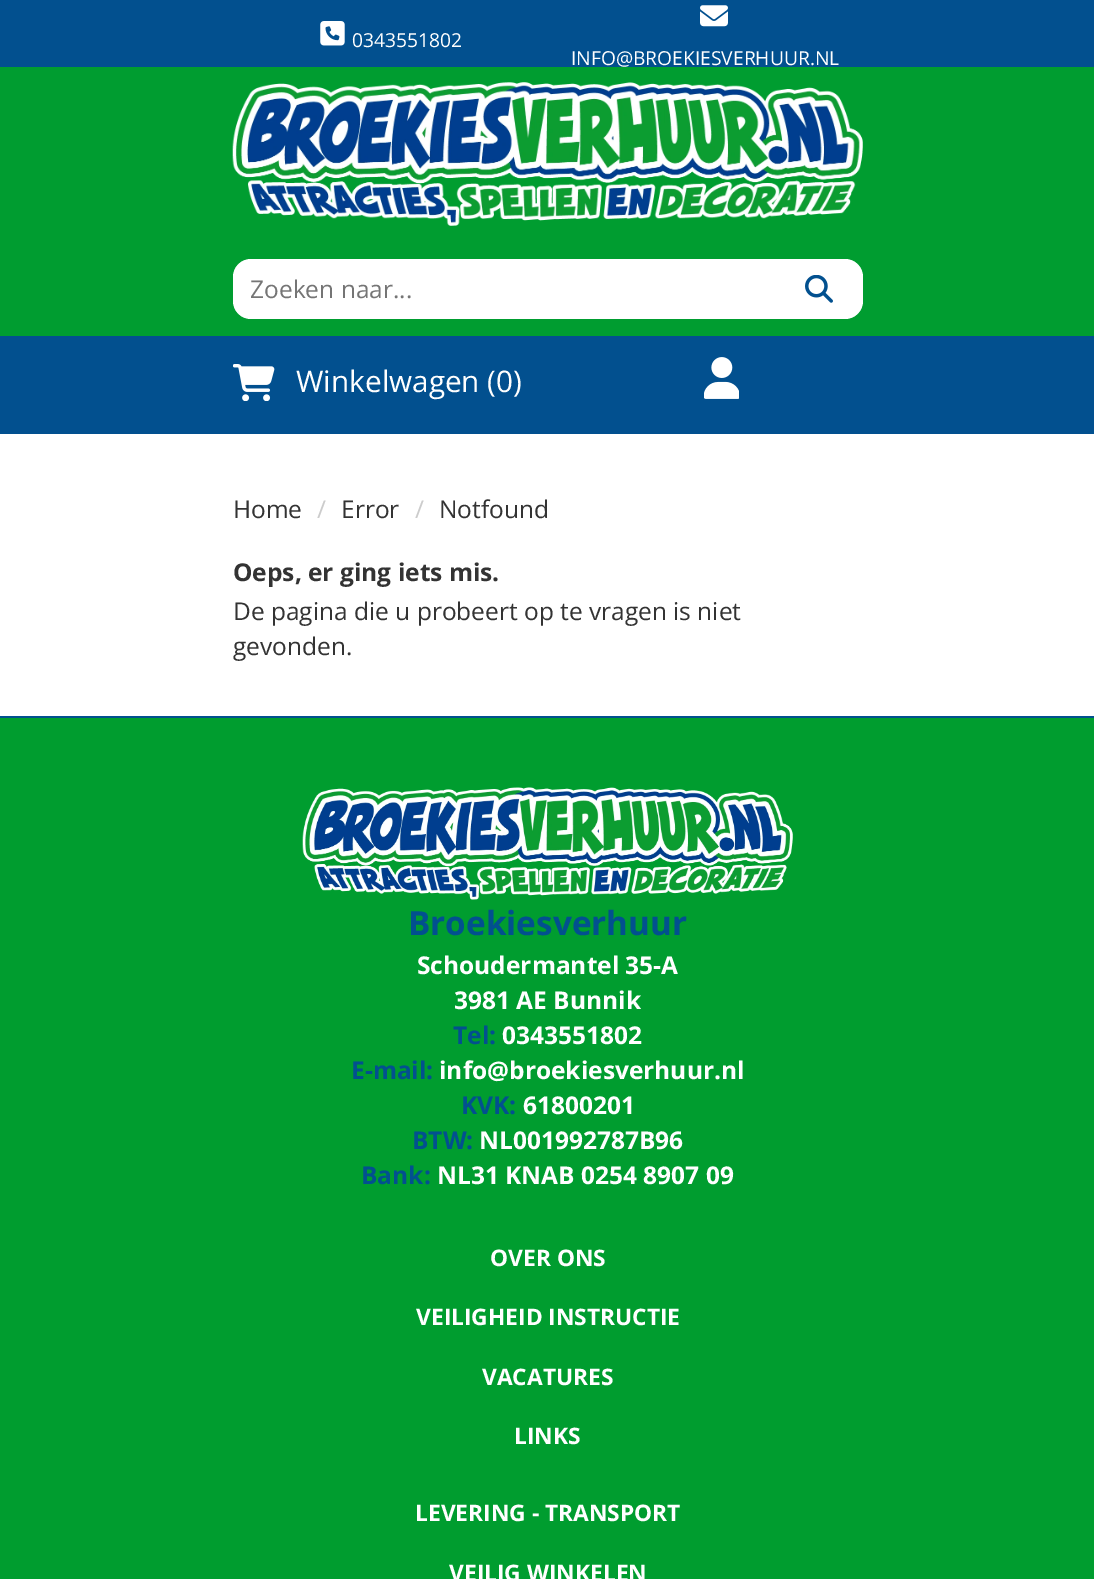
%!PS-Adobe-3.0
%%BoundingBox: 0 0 1094 1579
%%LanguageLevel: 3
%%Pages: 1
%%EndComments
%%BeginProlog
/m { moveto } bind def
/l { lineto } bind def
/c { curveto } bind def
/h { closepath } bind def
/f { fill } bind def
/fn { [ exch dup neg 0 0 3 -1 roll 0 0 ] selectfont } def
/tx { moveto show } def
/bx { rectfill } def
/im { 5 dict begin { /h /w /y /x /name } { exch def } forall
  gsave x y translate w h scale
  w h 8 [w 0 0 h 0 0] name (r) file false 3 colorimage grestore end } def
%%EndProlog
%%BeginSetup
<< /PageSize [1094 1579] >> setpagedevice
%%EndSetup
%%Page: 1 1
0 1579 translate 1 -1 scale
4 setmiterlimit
1 setgray
0 0 1094 1579 bx
0 0.616 0.188 setrgbcolor
0 67 1094 269 bx
0.008 0.314 0.561 setrgbcolor
0 0 1094 67 bx
(image0.raw) 320 21 25 25 im
/OpenSans-Regular 19.25 fn
1 setgray
(0343551802) 352 47 tx
(image1.raw) 700 5 28 22 im
(INFO@BROEKIESVERHUUR.NL) 571 65 tx
(image2.raw) 232 82 631 144 im
251 259 m 774 259 l 774 319 l 251 319 l 241 319 233 311 233 301 c 233 277 l 233 267 241 259 251 259 c h f
/OpenSans-Regular 24.5 fn
0.459 setgray
(Zoeken naar...) 250 298 tx
1 setgray
774 259 m 845 259 l 855 259 863 267 863 277 c 863 301 l 863 311 855 319 845 319 c 774 319 l h f
(image3.raw) 805 275 28 28 im
0.008 0.314 0.561 setrgbcolor
0 336 1094 98 bx
(image4.raw) 233 364 42 37 im
/OpenSans-Regular 29.75 fn
1 setgray
(Winkelwagen \(0\)) 296 392 tx
(image5.raw) 704 357 35 42 im
/OpenSans-Regular 24.5 fn
0.2 setgray
(Home) 233 518 tx
0.8 setgray
(/) 317 518 tx
0.2 setgray
(Error) 341 518 tx
0.8 setgray
(/) 415 518 tx
0.2 setgray
(Notfound) 439 518 tx
/OpenSans-Bold 24.5 fn
(Oeps, er ging iets mis.) 233 581 tx
/OpenSans-Regular 24.5 fn
(De pagina die u probeert op te vragen is niet) 233 620 tx
(gevonden.) 233 655 tx
0 0.616 0.184 setrgbcolor
0 718 1094 861 bx
0.008 0.314 0.561 setrgbcolor
0 716 1094 2 bx
(image6.raw) 302 787 491 113 im
/OpenSans-Bold 33.25 fn
(Broekiesverhuur) 408 935 tx
/OpenSans-Bold 24.5 fn
1 setgray
(Schoudermantel 35-A) 417 974 tx
(3981 AE Bunnik) 454 1009 tx
0.008 0.314 0.561 setrgbcolor
(Tel:) 453 1044 tx
1 setgray
(0343551802) 502 1044 tx
0.008 0.314 0.561 setrgbcolor
(E-mail:) 351 1079 tx
1 setgray
(info@broekiesverhuur.nl) 439 1079 tx
0.008 0.314 0.561 setrgbcolor
(KVK:) 461 1114 tx
1 setgray
(61800201) 523 1114 tx
0.008 0.314 0.561 setrgbcolor
(BTW:) 412 1149 tx
1 setgray
(NL001992787B96) 479 1149 tx
0.008 0.314 0.561 setrgbcolor
(Bank:) 361 1184 tx
1 setgray
(NL31 KNAB 0254 8907 09) 437 1184 tx
/OpenSans-Bold 22.75 fn
(OVER ONS) 490 1266 tx
(VEILIGHEID INSTRUCTIE) 416 1325 tx
(VACATURES) 482 1385 tx
(LINKS) 514 1444 tx
(LEVERING - TRANSPORT) 415 1521 tx
(VEILIG WINKELEN) 449 1581 tx
showpage
%%EOF
